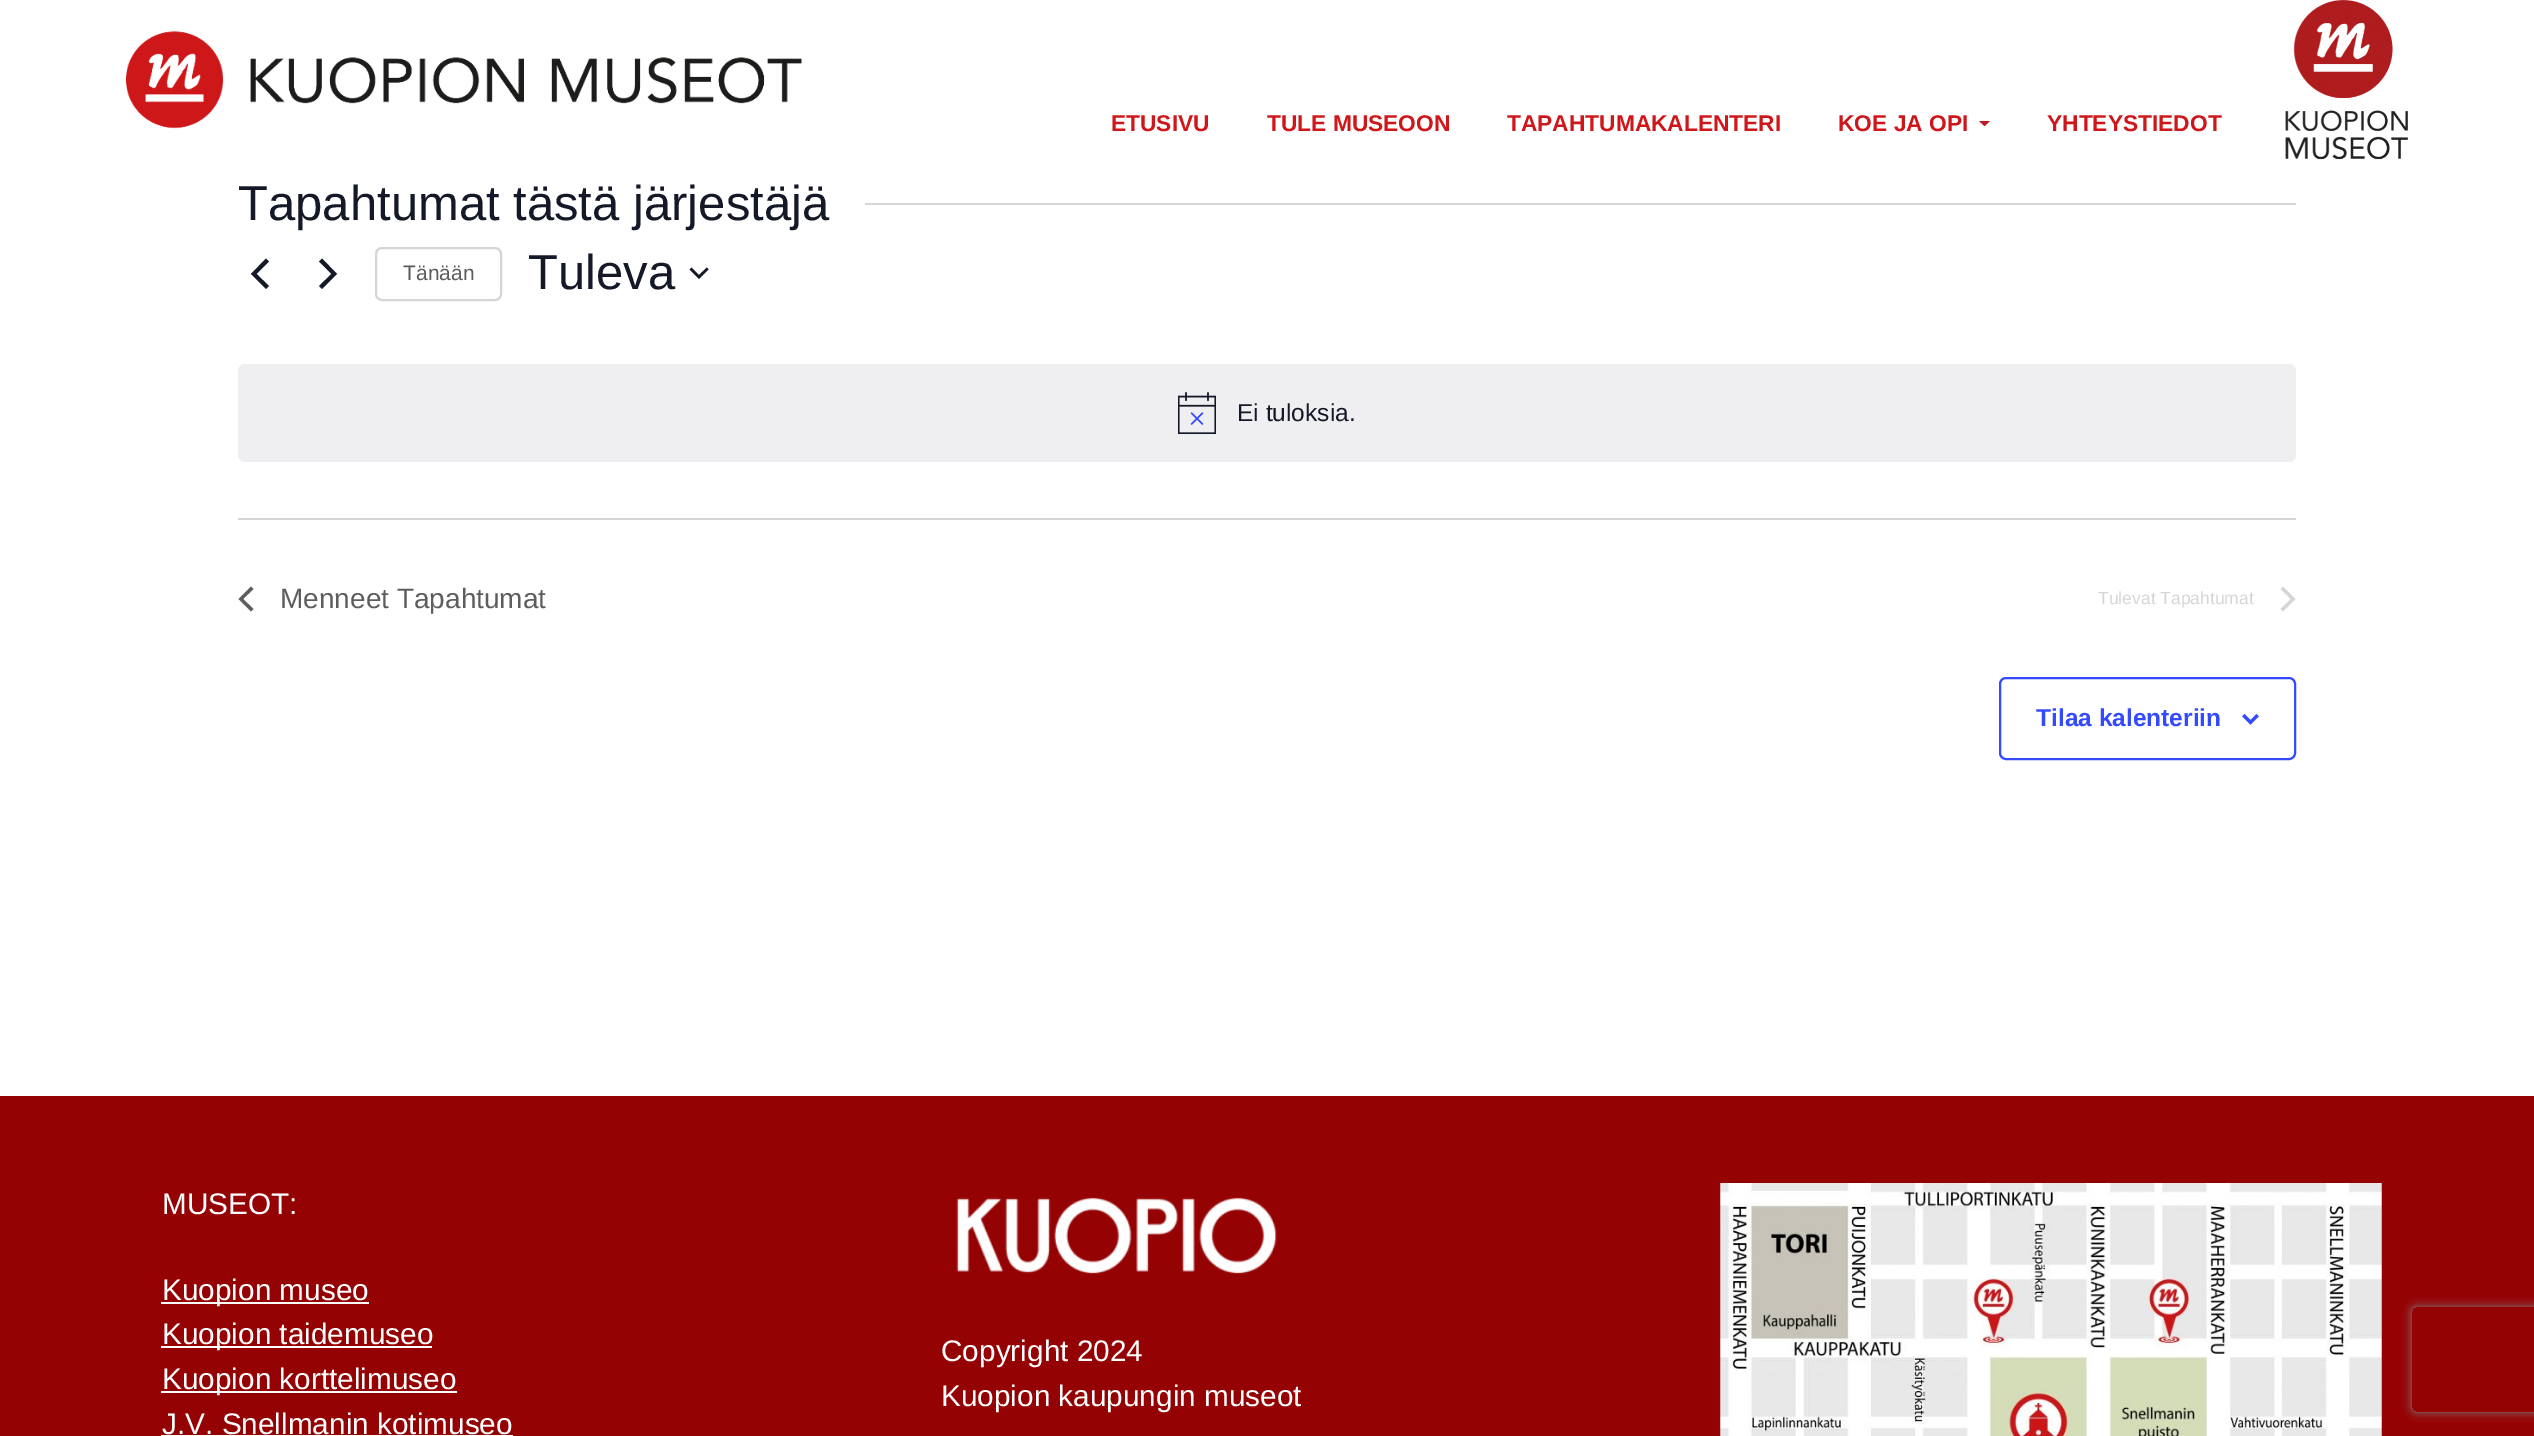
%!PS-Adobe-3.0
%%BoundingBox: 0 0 2534 1436
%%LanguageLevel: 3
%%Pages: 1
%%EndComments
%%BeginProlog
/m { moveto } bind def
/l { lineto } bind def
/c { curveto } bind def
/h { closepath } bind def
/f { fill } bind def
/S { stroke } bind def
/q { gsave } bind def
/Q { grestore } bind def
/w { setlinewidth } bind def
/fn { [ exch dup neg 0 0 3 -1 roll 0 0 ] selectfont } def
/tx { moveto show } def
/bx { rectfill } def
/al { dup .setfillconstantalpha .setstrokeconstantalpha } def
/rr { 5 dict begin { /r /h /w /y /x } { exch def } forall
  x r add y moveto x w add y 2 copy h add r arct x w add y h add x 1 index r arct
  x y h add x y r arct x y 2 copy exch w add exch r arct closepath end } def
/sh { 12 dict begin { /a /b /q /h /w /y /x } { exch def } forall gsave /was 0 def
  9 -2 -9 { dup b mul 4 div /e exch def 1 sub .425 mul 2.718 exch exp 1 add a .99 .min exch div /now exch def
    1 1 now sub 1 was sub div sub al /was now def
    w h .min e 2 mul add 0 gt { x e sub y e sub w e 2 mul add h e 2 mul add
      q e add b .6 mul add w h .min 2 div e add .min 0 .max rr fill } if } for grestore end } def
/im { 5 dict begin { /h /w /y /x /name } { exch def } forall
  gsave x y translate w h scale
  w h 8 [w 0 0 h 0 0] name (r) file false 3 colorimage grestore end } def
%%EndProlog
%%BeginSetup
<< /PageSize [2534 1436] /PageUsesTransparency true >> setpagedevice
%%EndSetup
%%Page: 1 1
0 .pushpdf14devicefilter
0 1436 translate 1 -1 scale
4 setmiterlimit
1 setgray
0 0 2534 1436 bx
(image0.raw) 126 31 677 98 im
/LiberationSans-Bold 22.75 fn
0.808 0.09 0.102 setrgbcolor
(ETUSIVU) 1111 131 tx
(TULE MUSEOON) 1267 131 tx
(TAPAHTUMAKALENTERI) 1507 131 tx
(KOE JA OPI) 1838 131 tx
0.745 0.102 0.133 setrgbcolor
1979 121 m 1990 121 l 1984.5 126 l h f
0.808 0.09 0.102 setrgbcolor
(YHTEYSTIEDOT) 2047 131 tx
(image1.raw) 2285 0 123 160 im
/LiberationSans-Regular 49 fn
0.078 0.094 0.153 setrgbcolor
(Tapahtumat tästä järjestäjä) 238 220 tx
0.835 setgray
865 203 1431 2 bx
0.078 0.094 0.153 setrgbcolor
269 286 m 266 289 l 251 274 l 266 258.5 l 269 261.5 l 256.5 274 l h f
319 261.5 m 322 258.5 l 337 274 l 322 289 l 319 286 l 331.5 274 l h f
0.835 setgray
2 w
376 248 125 52 6 rr S
/LiberationSans-Regular 21 fn
0.365 setgray
(Tänään) 403 280 tx
/LiberationSans-Regular 49 fn
0.078 0.094 0.153 setrgbcolor
(Tuleva) 528 289 tx
691.5 267.5 m 699 275 l 707 267.5 l 708.5 269.5 l 699 279 l 689.5 269.5 l h eofill
0.937 0.937 0.945 setrgbcolor
238 364 2058 98 7 rr f
(image2.raw) 1178 392 38 42 im
/LiberationSans-Regular 24.5 fn
0.078 0.094 0.153 setrgbcolor
(Ei tuloksia.) 1237 421 tx
0.835 setgray
238 518 2058 2 bx
0.365 setgray
253.5 609 m 251 611.5 l 238.5 599 l 251 586.5 l 253.5 589 l 243 599 l h f
/LiberationSans-Regular 28 fn
(Menneet Tapahtumat) 280 608 tx
/LiberationSans-Regular 17.5 fn
0.835 setgray
(Tulevat Tapahtumat) 2098 604 tx
2280.5 589 m 2283 586.5 l 2295.5 599 l 2283 611.5 l 2280.5 609 l 2291 599 l h f
0.2 0.29 1 setrgbcolor
2000 678 295 81 6 rr S
/LiberationSans-Bold 24.5 fn
(Tilaa kalenteriin) 2036 726 tx
(image3.raw) 2242 714 17 11 im
0.584 0.008 0.016 setrgbcolor
0 1096 2534 340 bx
/LiberationSans-Regular 29.75 fn
1 setgray
(MUSEOT:) 162 1214 tx
161 1302 208 2 bx
(Kuopion museo) 162 1300 tx
161 1346 271 2 bx
(Kuopion taidemuseo) 162 1344 tx
161 1391 296 2 bx
(Kuopion korttelimuseo) 162 1389 tx
(J.V. Snellmanin kotimuseo) 162 1434 tx
161 1435 352 1 bx
(image4.raw) 956 1197 321 77 im
(Copyright 2024) 941 1361 tx
(Kuopion kaupungin museot) 941 1406 tx
(image5.raw) 1720 1183 662 253 im
q
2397 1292 m 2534 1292 l 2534 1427 l 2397 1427 l h 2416 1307 m 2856 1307 l 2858 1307 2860 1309 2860 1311 c 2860 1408 l 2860 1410 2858 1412 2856 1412 c 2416 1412 l 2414 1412 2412 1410 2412 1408 c 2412 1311 l 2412 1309 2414 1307 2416 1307 c h eoclip newpath
0.502 setgray
2412 1307 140 105 4 4.5 1 sh
Q
.poppdf14devicefilter showpage
%%EOF
